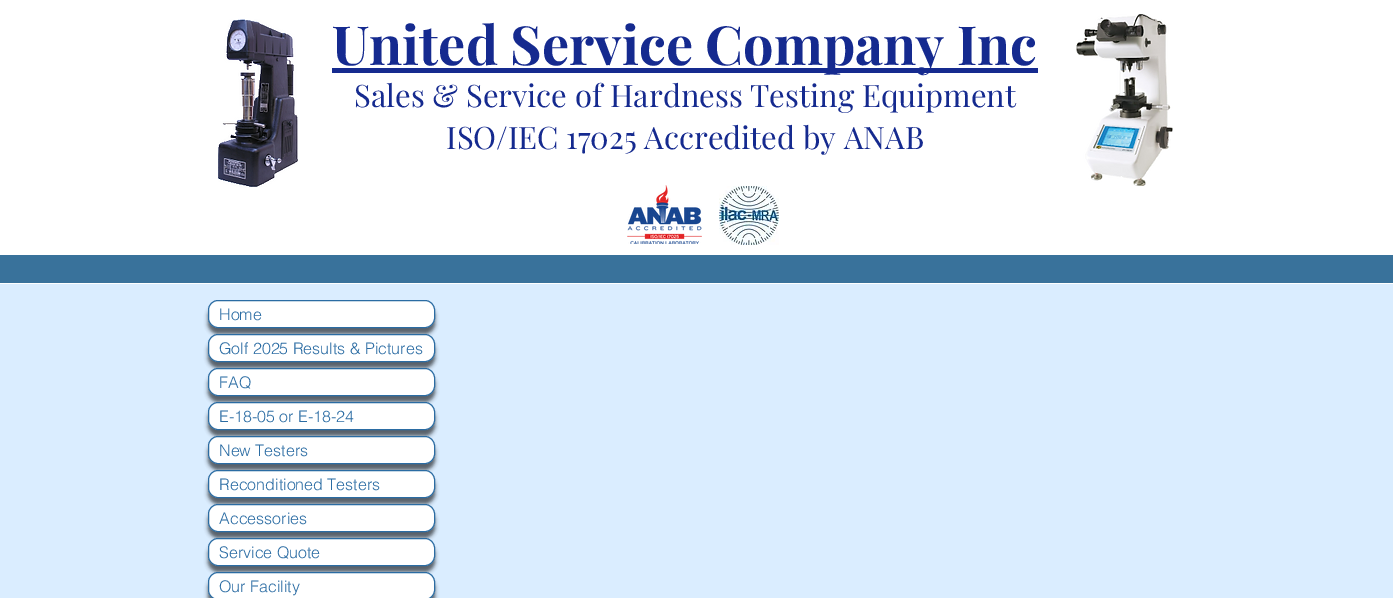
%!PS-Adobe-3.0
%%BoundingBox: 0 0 1393 598
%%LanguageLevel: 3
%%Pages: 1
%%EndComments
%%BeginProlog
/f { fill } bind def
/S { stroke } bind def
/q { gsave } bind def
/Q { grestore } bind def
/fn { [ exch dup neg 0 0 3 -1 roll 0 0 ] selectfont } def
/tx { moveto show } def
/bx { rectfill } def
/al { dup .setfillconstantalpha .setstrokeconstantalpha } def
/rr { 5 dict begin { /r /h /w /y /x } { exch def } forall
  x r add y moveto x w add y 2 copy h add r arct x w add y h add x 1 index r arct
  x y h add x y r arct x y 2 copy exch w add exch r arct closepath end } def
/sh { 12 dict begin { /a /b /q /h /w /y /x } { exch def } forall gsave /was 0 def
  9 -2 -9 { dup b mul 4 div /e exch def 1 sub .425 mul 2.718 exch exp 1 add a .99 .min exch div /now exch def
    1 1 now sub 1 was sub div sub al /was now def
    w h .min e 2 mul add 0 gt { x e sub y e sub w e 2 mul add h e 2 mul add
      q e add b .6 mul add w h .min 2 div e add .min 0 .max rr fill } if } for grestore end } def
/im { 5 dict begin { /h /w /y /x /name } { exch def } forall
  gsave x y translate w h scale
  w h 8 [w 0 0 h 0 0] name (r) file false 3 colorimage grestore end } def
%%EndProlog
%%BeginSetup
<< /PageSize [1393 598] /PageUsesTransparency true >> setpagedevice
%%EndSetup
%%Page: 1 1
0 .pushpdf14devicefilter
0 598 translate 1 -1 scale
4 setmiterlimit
0.855 0.929 1 setrgbcolor
0 0 1393 598 bx
1 setgray
0 0 1393 284 bx
(image0.raw) 218 19 80 169 im
0.082 0.165 0.561 setrgbcolor
332 68 706 5 bx
/PlayfairDisplay-Bold 54 fn
(United Service Company Inc) 332 65 tx
/PlayfairDisplay-Regular 31 fn
(Sales & Service of Hardness Testing Equipment) 354 107 tx
(ISO/IEC 17025 Accredited by ANAB) 446 149 tx
(image1.raw) 1076 14 97 172 im
(image2.raw) 627 185 75 59 im
(image3.raw) 719 186 60 59 im
0.224 0.447 0.608 setrgbcolor
0 255 1393 28 bx
0 setgray
208 306 227 28 10 2 0.6 sh
1 setgray
208.5 300.5 226 27 9.5 rr q f Q
0.169 0.424 0.639 setrgbcolor
S
/helvetica-Light 16 fn
(Home) 219 320 tx
0 setgray
208 340 227 28 10 2 0.6 sh
1 setgray
208.5 334.5 226 27 9.5 rr q f Q
0.169 0.424 0.639 setrgbcolor
S
(Golf 2025 Results & Pictures) 219 354 tx
0 setgray
208 374 227 28 10 2 0.6 sh
1 setgray
208.5 368.5 226 27 9.5 rr q f Q
0.169 0.424 0.639 setrgbcolor
S
(FAQ) 219 388 tx
0 setgray
208 408 227 28 10 2 0.6 sh
1 setgray
208.5 402.5 226 27 9.5 rr q f Q
0.169 0.424 0.639 setrgbcolor
S
(E-18-05 or E-18-24) 219 422 tx
0 setgray
208 442 227 28 10 2 0.6 sh
1 setgray
208.5 436.5 226 27 9.5 rr q f Q
0.169 0.424 0.639 setrgbcolor
S
(New Testers) 219 456 tx
0 setgray
208 476 227 28 10 2 0.6 sh
1 setgray
208.5 470.5 226 27 9.5 rr q f Q
0.169 0.424 0.639 setrgbcolor
S
(Reconditioned Testers) 219 490 tx
0 setgray
208 510 227 28 10 2 0.6 sh
1 setgray
208.5 504.5 226 27 9.5 rr q f Q
0.169 0.424 0.639 setrgbcolor
S
(Accessories) 219 524 tx
0 setgray
208 544 227 28 10 2 0.6 sh
1 setgray
208.5 538.5 226 27 9.5 rr q f Q
0.169 0.424 0.639 setrgbcolor
S
(Service Quote) 219 558 tx
0 setgray
208 578 227 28 10 2 0.6 sh
1 setgray
208.5 572.5 226 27 9.5 rr q f Q
0.169 0.424 0.639 setrgbcolor
S
(Our Facility) 219 592 tx
.poppdf14devicefilter showpage
%%EOF
